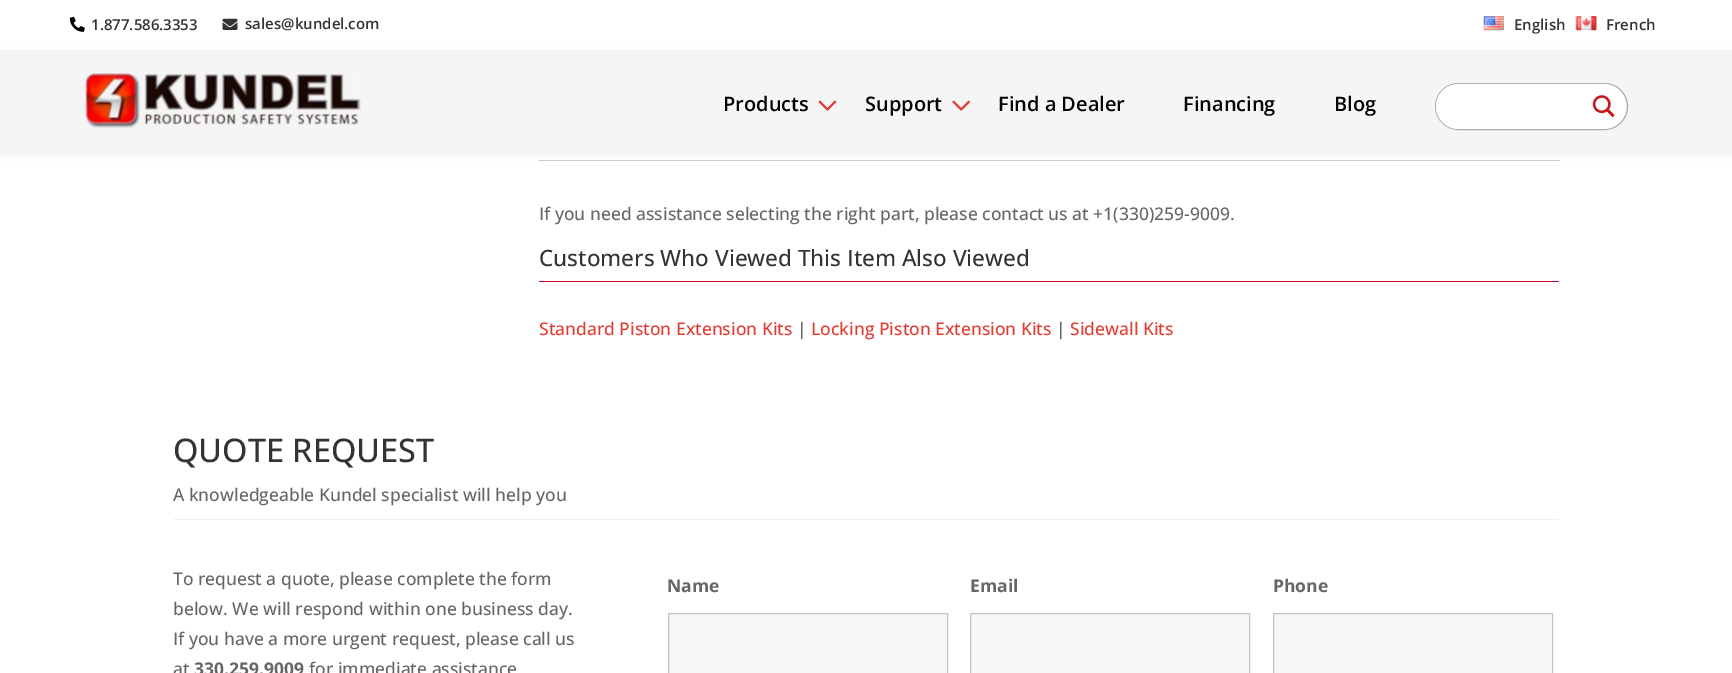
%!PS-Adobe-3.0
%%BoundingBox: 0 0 1732 673
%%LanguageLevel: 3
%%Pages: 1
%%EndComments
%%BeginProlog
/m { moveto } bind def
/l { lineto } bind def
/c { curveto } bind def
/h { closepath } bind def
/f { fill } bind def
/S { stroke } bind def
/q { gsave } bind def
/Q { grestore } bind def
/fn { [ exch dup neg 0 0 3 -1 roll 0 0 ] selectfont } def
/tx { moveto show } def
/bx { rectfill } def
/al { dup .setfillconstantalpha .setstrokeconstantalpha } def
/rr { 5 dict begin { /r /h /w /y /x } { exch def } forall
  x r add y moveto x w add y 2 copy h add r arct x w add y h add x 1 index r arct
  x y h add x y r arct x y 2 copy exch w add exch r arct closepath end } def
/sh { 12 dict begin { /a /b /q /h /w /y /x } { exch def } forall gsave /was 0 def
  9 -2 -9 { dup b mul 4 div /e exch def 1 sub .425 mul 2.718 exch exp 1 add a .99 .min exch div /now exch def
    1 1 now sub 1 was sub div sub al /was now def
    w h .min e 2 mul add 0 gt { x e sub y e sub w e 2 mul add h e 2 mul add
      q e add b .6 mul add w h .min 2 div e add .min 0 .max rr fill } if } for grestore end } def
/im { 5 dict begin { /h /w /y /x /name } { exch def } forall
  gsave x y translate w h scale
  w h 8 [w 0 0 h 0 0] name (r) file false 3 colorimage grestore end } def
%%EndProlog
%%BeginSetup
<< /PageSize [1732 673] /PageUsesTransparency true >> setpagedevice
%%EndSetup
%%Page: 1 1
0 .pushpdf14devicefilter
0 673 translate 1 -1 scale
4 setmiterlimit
1 setgray
0 0 1732 673 bx
0.8 setgray
539 160 1021 1 bx
0 setgray
0 50 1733 103 0 4.5 0.1 sh
1 setgray
0 44 1732 6 bx
(image0.raw) 69 16 16 16 im
/OpenSans-SemiBold 15 fn
0.2 setgray
(1.877.586.3353) 91 30 tx
(image1.raw) 222 18 16 12 im
(sales@kundel.com) 245 29 tx
(image2.raw) 1483 16 21 15 im
(English) 1514 30 tx
(image3.raw) 1575 16 22 15 im
(French) 1606 30 tx
0.961 setgray
0 50 1732 103 bx
(image4.raw) 85 73 276 56 im
/OpenSans-SemiBold 20 fn
0.012 setgray
(Products) 723 111 tx
(image5.raw) 818 100 19 11 im
(Support) 865 111 tx
(image6.raw) 952 100 18 11 im
(Find a Dealer) 998 111 tx
(Financing) 1183 111 tx
(Blog) 1334 111 tx
0.678 setgray
1435.5 83.5 192 46 23 rr S
1 setgray
1436 84 190 45 22.5 rr f
q
1586 89 35 35 rectclip
1585 90 m 1619 90 l 1609 81 1592 84 1580 84 c 1462 84 l 1462 129 l 1604 129 l 1608 129 1613 128 1616 125 c 1585 125 l h 1620 122 m 1628 113 1628 100 1620 91 c h eofill
Q
(image7.raw) 1592 95 23 23 im
/OpenSans-Medium 17.5 fn
0.4 setgray
(If you need assistance selecting the right part, please contact us at +1\(330\)259-9009.) 539 220 tx
/OpenSans-Medium 22.5 fn
0.2 setgray
(Customers Who Viewed This Item Also Viewed) 539 266 tx
0.776 0.047 0.188 setrgbcolor
539 281 1020 1 bx
/OpenSans-Medium 17.5 fn
0.886 0.239 0.2 setrgbcolor
(Standard Piston Extension Kits) 539 335 tx
0.4 setgray
(|) 797 335 tx
0.886 0.239 0.2 setrgbcolor
(Locking Piston Extension Kits) 811 335 tx
0.4 setgray
(|) 1056 335 tx
0.886 0.239 0.2 setrgbcolor
(Sidewall Kits) 1070 335 tx
/OpenSans-Medium 32.5 fn
0.2 setgray
(QUOTE REQUEST) 173 462 tx
0.933 setgray
174 519 1385 1 bx
/OpenSans-Medium 17.5 fn
0.4 setgray
(A knowledgeable Kundel specialist will help you) 173 501 tx
(To request a quote, please complete the form) 173 585 tx
(below. We will respond within one business day.) 173 615 tx
(If you have a more urgent request, please call us) 173 645 tx
(at) 173 675 tx
/OpenSans-Bold 17.5 fn
(330.259.9009) 194 675 tx
/OpenSans-Medium 17.5 fn
(for immediate assistance) 309 675 tx
/OpenSans-Bold 17.5 fn
(Name) 667 592 tx
0.969 setgray
668.5 613.5 m 947.5 613.5 l 947.5 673.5 l 668.5 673.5 l h q f Q
0.769 setgray
S
0.4 setgray
(Email) 970 592 tx
0.969 setgray
970.5 613.5 m 1249.5 613.5 l 1249.5 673.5 l 970.5 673.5 l h q f Q
0.769 setgray
S
0.4 setgray
(Phone) 1273 592 tx
0.969 setgray
1273.5 613.5 m 1552.5 613.5 l 1552.5 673.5 l 1273.5 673.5 l h q f Q
0.769 setgray
S
.poppdf14devicefilter showpage
%%EOF
